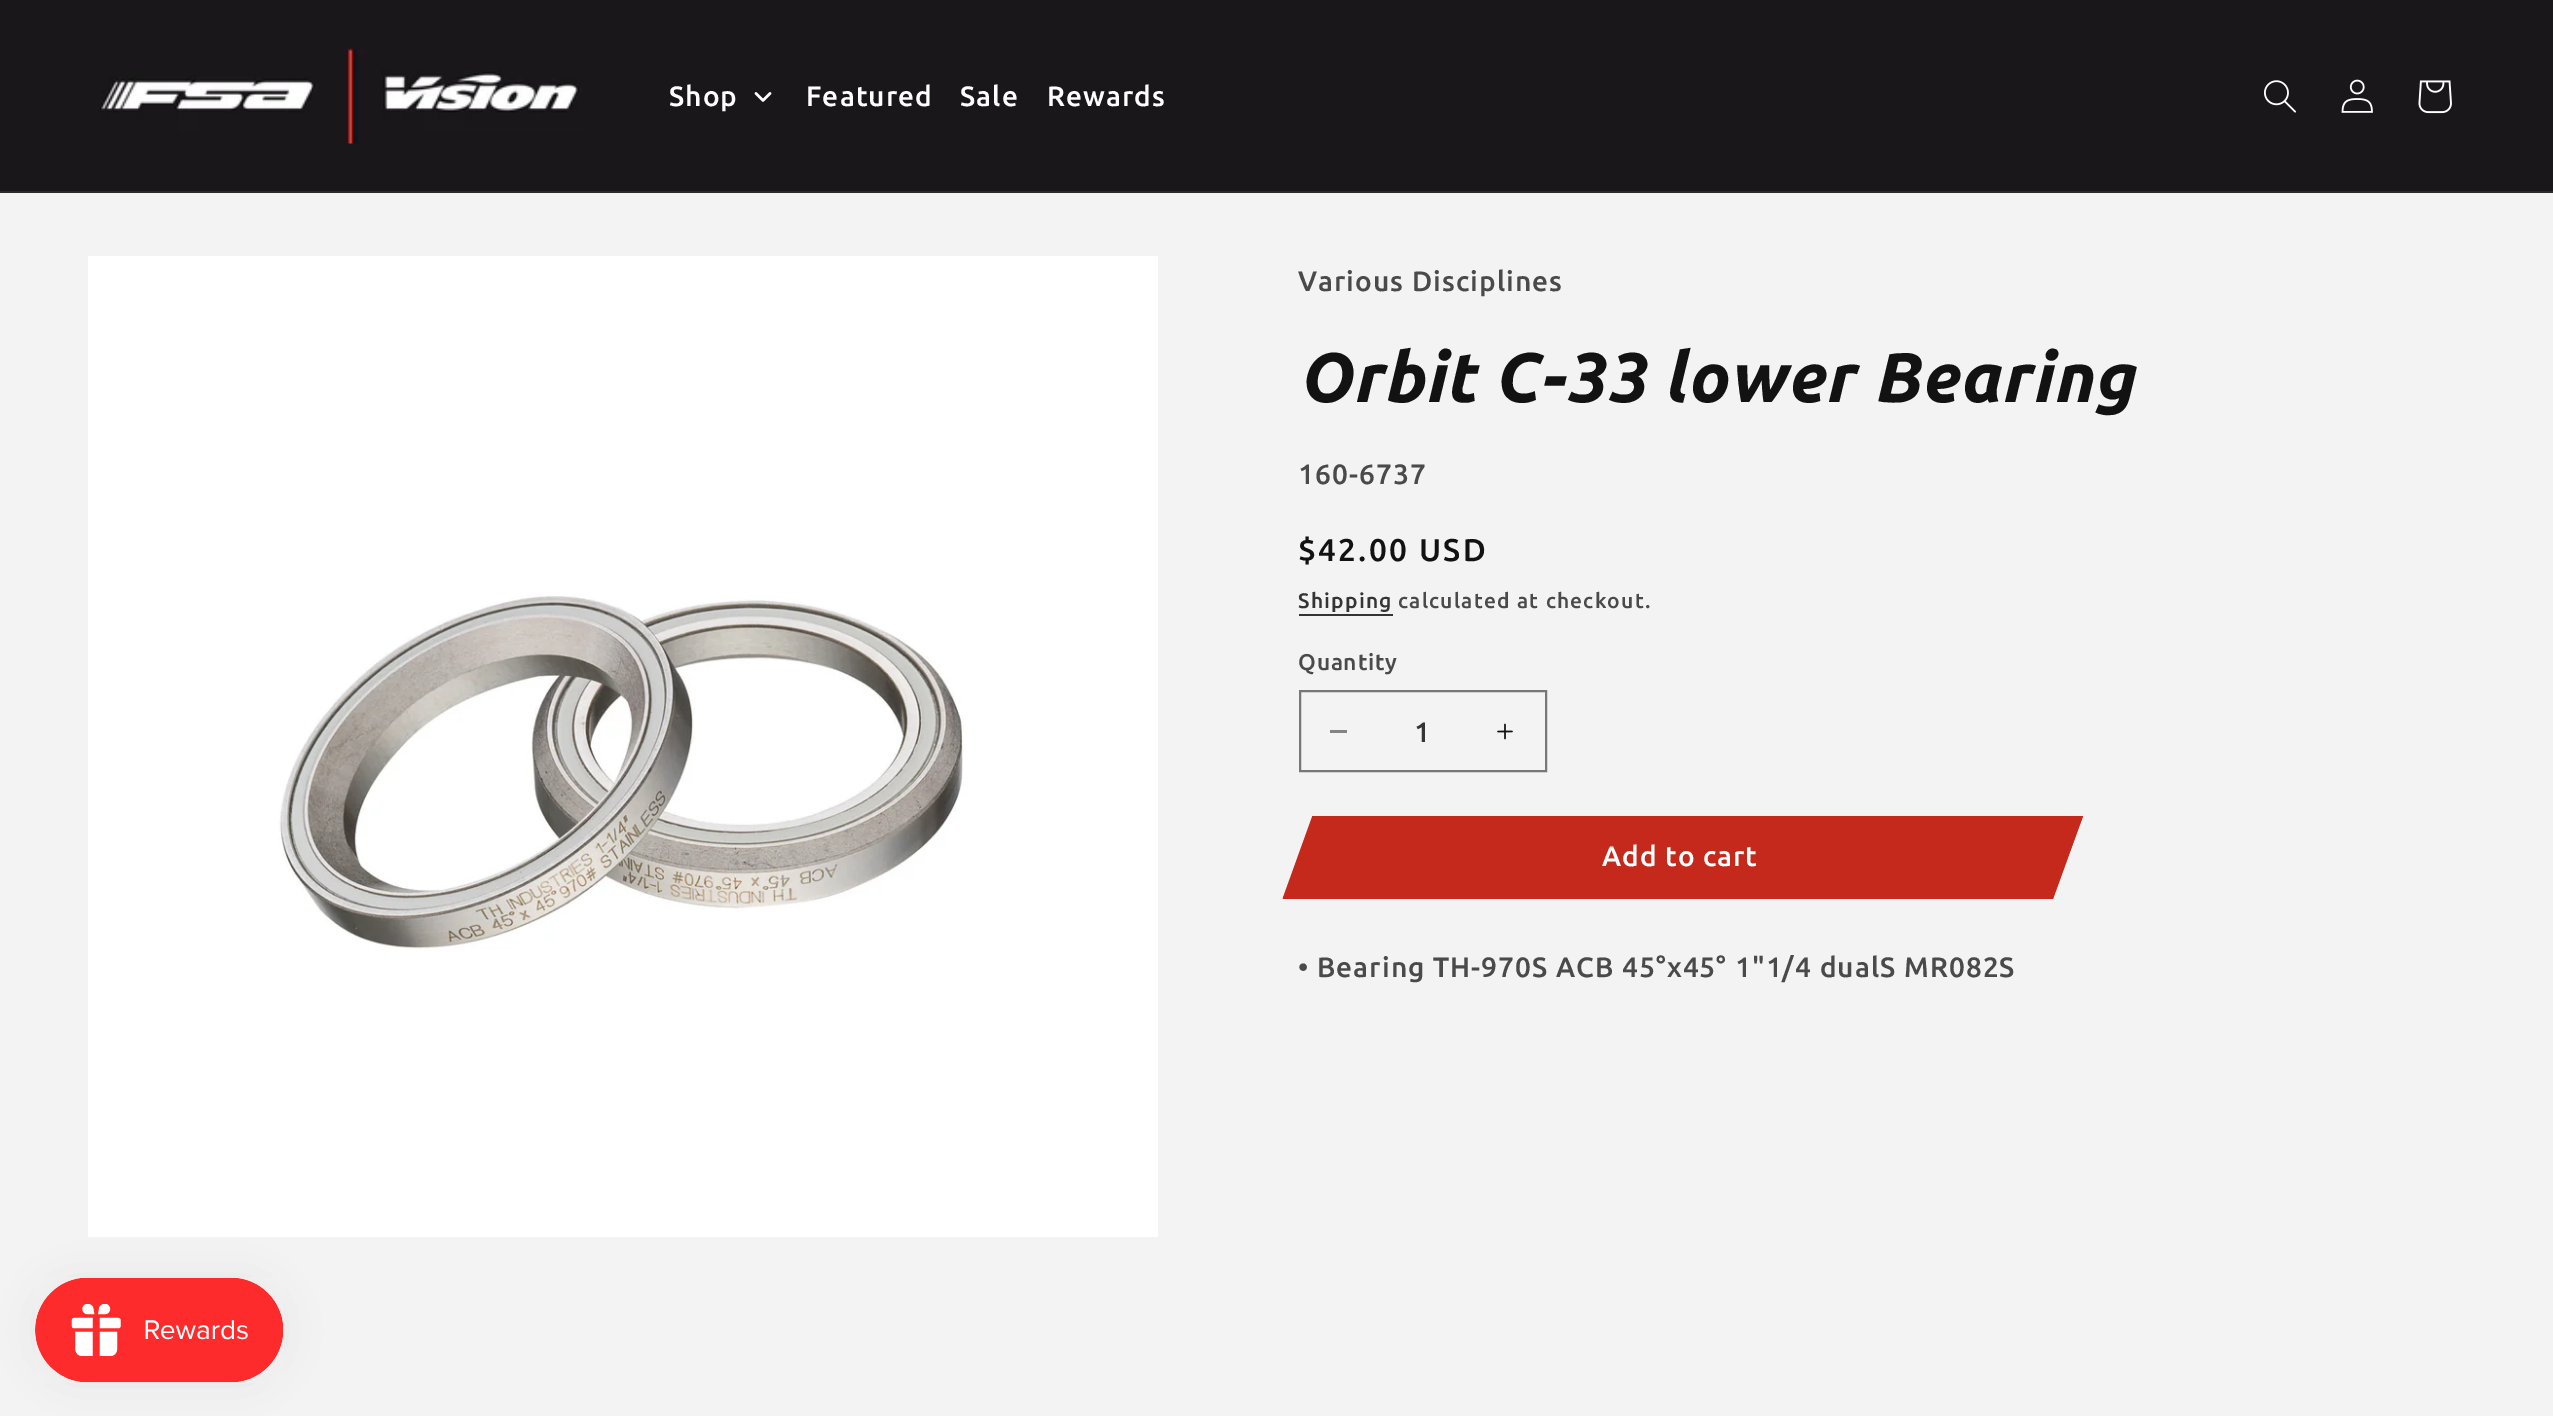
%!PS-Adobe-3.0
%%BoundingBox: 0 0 2553 1416
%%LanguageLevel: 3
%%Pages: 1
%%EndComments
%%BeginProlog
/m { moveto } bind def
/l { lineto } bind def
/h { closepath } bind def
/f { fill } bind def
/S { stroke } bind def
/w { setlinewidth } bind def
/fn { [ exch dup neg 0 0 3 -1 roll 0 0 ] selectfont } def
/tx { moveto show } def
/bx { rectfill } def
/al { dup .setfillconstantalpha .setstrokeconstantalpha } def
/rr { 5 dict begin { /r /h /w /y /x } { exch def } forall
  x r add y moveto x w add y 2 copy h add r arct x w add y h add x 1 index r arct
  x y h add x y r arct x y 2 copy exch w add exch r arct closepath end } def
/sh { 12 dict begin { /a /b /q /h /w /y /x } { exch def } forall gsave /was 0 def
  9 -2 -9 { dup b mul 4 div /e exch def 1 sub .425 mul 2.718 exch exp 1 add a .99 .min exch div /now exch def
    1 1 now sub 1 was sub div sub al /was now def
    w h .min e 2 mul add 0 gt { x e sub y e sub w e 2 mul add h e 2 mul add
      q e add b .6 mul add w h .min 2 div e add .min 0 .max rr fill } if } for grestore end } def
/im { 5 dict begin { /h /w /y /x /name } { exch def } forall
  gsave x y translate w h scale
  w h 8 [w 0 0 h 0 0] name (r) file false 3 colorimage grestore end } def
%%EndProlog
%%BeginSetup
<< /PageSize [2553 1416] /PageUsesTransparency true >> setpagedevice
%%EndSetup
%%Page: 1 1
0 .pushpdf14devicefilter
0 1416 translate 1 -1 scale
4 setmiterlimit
0.953 setgray
0 0 2553 1416 bx
0.098 0.09 0.102 setrgbcolor
0 0 2553 191 bx
0.169 0.165 0.173 setrgbcolor
0 191 2553 2 bx
(image0.raw) 97 48 485 96 im
/Ubuntu-Medium 28 fn
1 setgray
669 106 m 1.05 0 (Shop) ashow
(image1.raw) 754 92 18 10 im
806 106 m 1.05 0 (Featured) ashow
960 106 m 1.05 0 (Sale) ashow
1047 106 m 1.05 0 (Rewards) ashow
(image2.raw) 2264 80 32 33 im
(image3.raw) 2341 79 32 34 im
(image4.raw) 2418 80 34 34 im
(image5.raw) 88 256 1070 981 im
0.29 setgray
1298 291 m 1.05 0 (Various Disciplines) ashow
/Ubuntu-BoldItalic 70 fn
0.071 setgray
1298 402 m 1.05 0 (Orbit C-33 lower Bearing) ashow
/Ubuntu-Medium 28 fn
0.29 setgray
1298 484 m 1.05 0 (160-6737) ashow
/Ubuntu-Medium 31.5 fn
0.071 setgray
1298 561 m 2.25 0 ($42.00 USD) ashow
/Ubuntu-Medium 21 fn
0.204 setgray
1298 608 m 1.25 0 (Shipping) ashow
1299 614 94 2 bx
0.29 setgray
1398 608 m 1.25 0 (calculated at checkout.) ashow
/Ubuntu-Medium 22.75 fn
1298 670 m 0.75 0 (Quantity) ashow
0.514 setgray
1330 730 17 3 bx
(image6.raw) 1497 723 16 17 im
0.467 setgray
2 w
1300 691 246 80 rectstroke
/Ubuntu-Medium 28 fn
0.204 setgray
(1) 1414 742 tx
0.773 0.161 0.11 setrgbcolor
1313 816 m 2083 816 l 2053 899 l 1283 899 l h f
1 setgray
1602 866 m 1 0 (Add to cart) ashow
0.773 0.161 0.11 setrgbcolor
1.8 w
1313 817 m 2081.5 817 l 2052 897.5 l 1284 897.5 l h S
0.29 setgray
1298 977 m 1.05 0 (• Bearing TH-970S ACB 45°x45° 1"1/4 dualS MR082S) ashow
0 setgray
35 1278 249 105 52.5 22 0.05 sh
(image7.raw) 35 1277 249 106 im
.poppdf14devicefilter showpage
%%EOF
